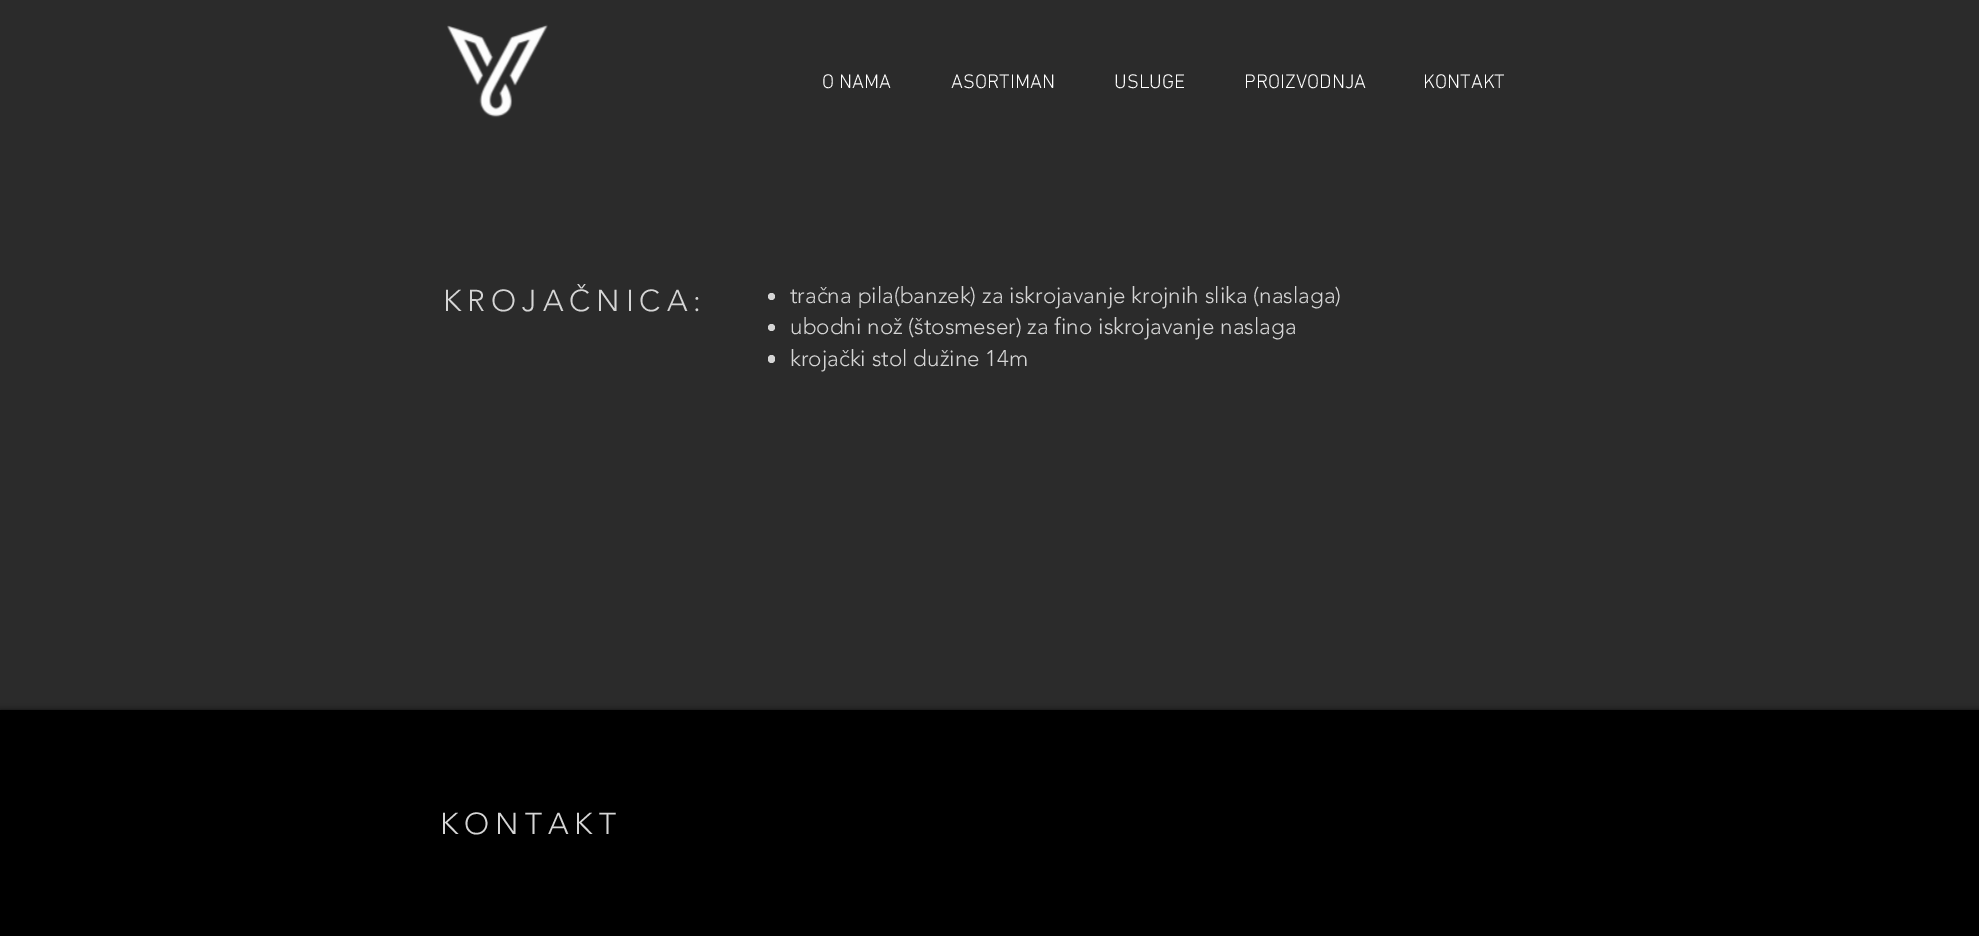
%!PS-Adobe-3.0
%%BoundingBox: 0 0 1979 936
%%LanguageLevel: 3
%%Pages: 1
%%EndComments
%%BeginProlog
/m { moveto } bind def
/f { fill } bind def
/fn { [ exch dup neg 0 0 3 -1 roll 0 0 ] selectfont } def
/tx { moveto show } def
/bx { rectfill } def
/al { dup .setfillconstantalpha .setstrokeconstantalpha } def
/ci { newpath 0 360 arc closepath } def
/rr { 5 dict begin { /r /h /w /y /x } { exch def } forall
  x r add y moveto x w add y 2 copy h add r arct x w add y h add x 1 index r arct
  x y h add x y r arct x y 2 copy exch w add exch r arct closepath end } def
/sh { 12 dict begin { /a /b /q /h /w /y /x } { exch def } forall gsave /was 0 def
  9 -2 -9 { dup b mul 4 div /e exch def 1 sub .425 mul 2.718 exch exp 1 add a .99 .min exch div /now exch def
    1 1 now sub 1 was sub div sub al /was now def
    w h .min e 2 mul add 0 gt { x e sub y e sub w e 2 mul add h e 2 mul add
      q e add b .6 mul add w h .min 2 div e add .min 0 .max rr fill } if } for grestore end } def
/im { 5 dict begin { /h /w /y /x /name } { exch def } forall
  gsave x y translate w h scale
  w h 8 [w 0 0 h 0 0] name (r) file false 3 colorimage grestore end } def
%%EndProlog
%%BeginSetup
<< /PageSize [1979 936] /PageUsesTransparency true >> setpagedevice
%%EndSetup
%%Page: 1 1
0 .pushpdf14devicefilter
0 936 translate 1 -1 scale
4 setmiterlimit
0.169 setgray
0 0 1979 936 bx
(image0.raw) 447 24 101 94 im
/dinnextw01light-Light 20 fn
1 setgray
(O NAMA) 822 88 tx
(ASORTIMAN) 951 88 tx
(USLUGE) 1114 88 tx
(PROIZVODNJA) 1244 88 tx
(KONTAKT) 1423 88 tx
/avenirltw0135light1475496-Light 30 fn
0.835 setgray
443 311 m 6 0 (KROJAČNICA:) ashow
771.5 296.5 3.5 ci f
/avenirltw0135light1475496-Light 22.5 fn
(tračna pila\(banzek\) za iskrojavanje krojnih slika \(naslaga\)) 790 303 tx
771.5 327.5 3.5 ci f
(ubodni nož \(štosmeser\) za fino iskrojavanje naslaga) 790 334 tx
768 355 7 8 3.5 rr f
(krojački stol dužine 14m) 790 366 tx
0 setgray
0 710 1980 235 0 3 0.7 sh
0 710 1979 226 bx
/avenirltw0135light1475496-Light 30 fn
0.835 setgray
440 834 m 6 0 (KONTAKT) ashow
.poppdf14devicefilter showpage
%%EOF
